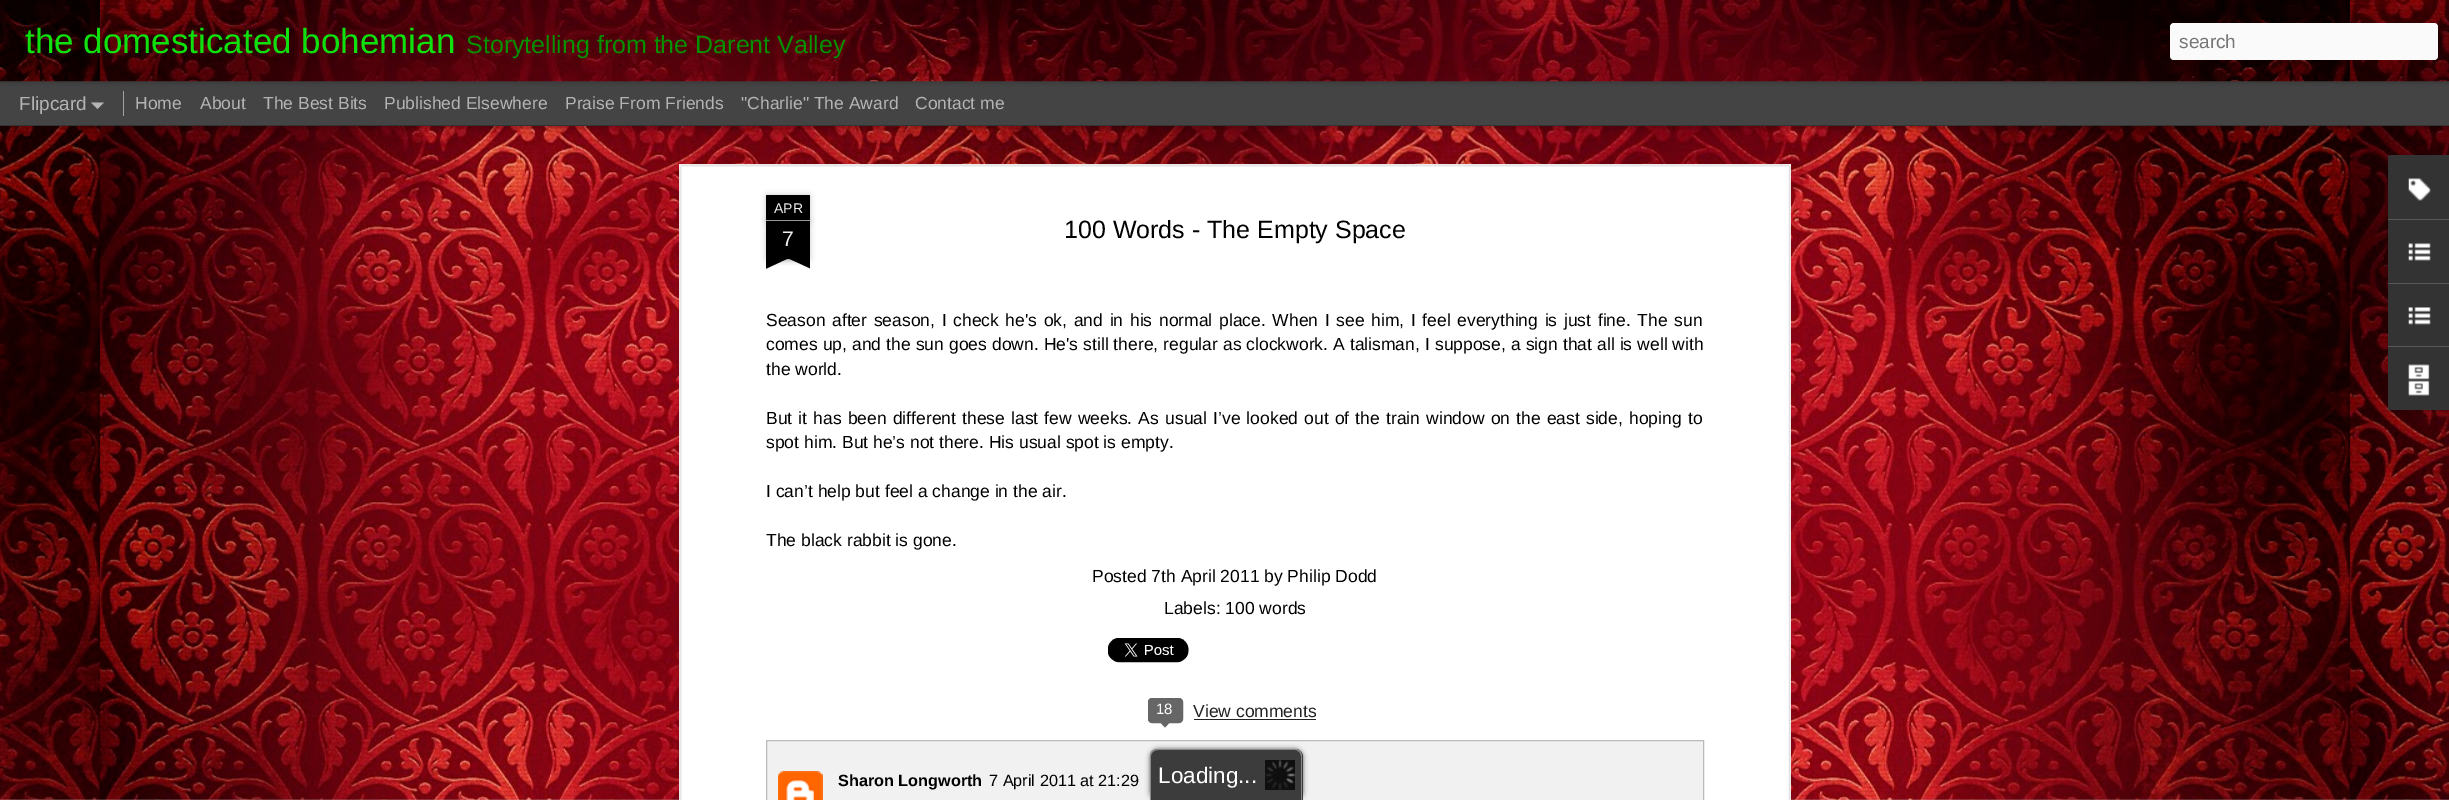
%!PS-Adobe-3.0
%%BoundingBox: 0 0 2449 800
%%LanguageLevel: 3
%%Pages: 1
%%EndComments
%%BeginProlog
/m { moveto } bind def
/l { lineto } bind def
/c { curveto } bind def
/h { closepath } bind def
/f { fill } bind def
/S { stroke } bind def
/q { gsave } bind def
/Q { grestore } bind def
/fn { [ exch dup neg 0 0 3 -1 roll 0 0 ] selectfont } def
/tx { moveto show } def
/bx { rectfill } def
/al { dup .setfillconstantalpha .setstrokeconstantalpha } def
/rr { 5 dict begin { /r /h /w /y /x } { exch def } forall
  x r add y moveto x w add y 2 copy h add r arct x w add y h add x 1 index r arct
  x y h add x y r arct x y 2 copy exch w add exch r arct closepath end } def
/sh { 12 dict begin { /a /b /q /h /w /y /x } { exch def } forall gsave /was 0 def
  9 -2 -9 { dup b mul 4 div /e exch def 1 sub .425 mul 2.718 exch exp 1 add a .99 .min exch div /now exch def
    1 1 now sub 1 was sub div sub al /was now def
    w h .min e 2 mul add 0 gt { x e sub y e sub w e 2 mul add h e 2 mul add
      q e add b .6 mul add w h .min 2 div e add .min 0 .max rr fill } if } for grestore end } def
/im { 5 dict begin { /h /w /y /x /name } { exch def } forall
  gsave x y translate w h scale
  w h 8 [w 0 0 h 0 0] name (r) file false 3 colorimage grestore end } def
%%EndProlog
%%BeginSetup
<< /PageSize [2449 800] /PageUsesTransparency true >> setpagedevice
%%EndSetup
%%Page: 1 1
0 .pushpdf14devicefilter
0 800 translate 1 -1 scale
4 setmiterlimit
1 setgray
0 0 2449 800 bx
(image0.raw) 0 799 2449 1 im
0.267 setgray
0 125 2449 1 bx
(image2.raw) 0 126 2449 674 im
0 setgray
0 81 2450 44 0 5 0.5 sh
0.267 setgray
0 81 2449 44 bx
0 setgray
0 0 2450 81 0 3 0.3 sh
(image1.raw) 0 0 2449 82 im
/LiberationSans-Regular 35 fn
0.059 0.882 0.059 setrgbcolor
(the domesticated bohemian) 25 53 tx
/LiberationSans-Regular 25 fn
0.027 0.565 0 setrgbcolor
(Storytelling from the Darent Valley) 466 53 tx
0.98 setgray
2170 23 268 37 4 rr f
/LiberationSans-Regular 19 fn
0.459 setgray
(search) 2179 48 tx
0.706 setgray
(Flipcard) 19 110 tx
91 102.5 m 104 102.5 l 97.5 109 l h f
0.635 setgray
123 91 1 25 bx
/LiberationSans-Regular 17.5 fn
0.706 setgray
(Home) 135 109 tx
(About) 200 109 tx
(The Best Bits) 263 109 tx
(Published Elsewhere) 384 109 tx
(Praise From Friends) 565 109 tx
("Charlie" The Award) 741 109 tx
(Contact me) 915 109 tx
1 setgray
679 164 1112 636 bx
(image3.raw) 679 164 1113 636 im
0 setgray
766 221 44 38 0 3 0.2 sh
766 221 44 38 bx
766 195 44 26 1 3 0.2 sh
767 195 m 809 195 l 809.5 195 810 195.5 810 196 c 810 221 l 766 221 l 766 196 l 766 195.5 766.5 195 767 195 c h f
0.6 setgray
766 220 44 1 bx
/LiberationSans-Regular 14 fn
0.933 setgray
(APR) 774 213 tx
/LiberationSans-Regular 21 fn
(7) 782 246 tx
q
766 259 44 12 rectclip
0 setgray
755 246 63 13 0 3 0.2 sh
Q
q
766 259 44 12 rectclip
0 setgray
755 260 m 812 234 l 817 245 l 761 271 l h f
Q
q
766 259 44 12 rectclip
0 setgray
759 246 62 13 0 3 0.2 sh
Q
q
766 259 44 12 rectclip
0 setgray
764 234 m 821 260 l 816 271 l 759 245 l h f
Q
/LiberationSans-Regular 25 fn
0 setgray
(100 Words - The Empty Space) 1064 238 tx
/LiberationSans-Regular 17.5 fn
766 326 m 1.8 0 32 (Season after season, I check he's ok, and in his normal place. When I see him, I feel everything is just fine. The sun) widthshow
766 350 m 0.2 0 32 (comes up, and the sun goes down. He's still there, regular as clockwork. A talisman, I suppose, a sign that all is well with) widthshow
(the world.) 766 375 tx
766 424 m 1.3 0 32 (But it has been different these last few weeks. As usual I’ve looked out of the train window on the east side, hoping to) widthshow
(spot him. But he’s not there. His usual spot is empty.) 766 448 tx
(I can’t help but feel a change in the air.) 766 497 tx
(The black rabbit is gone.) 766 546 tx
(Posted 7th April 2011 by Philip Dodd) 1092 582 tx
(Labels: 100 words) 1164 614 tx
(image4.raw) 1108 638 81 25 im
0.4 setgray
1148.5 698.5 34 24 3.5 rr q f Q
S
/LiberationSans-Regular 15 fn
1 setgray
(18) 1156 714 tx
0.4 setgray
1159 721 m 1171 721 l 1165 727.5 l h f
/LiberationSans-Regular 17.5 fn
0.133 setgray
(View comments) 1193 717 tx
1194 719 122 1 bx
0.945 setgray
766.5 740.5 m 1703.5 740.5 l 1703.5 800.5 l 766.5 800.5 l h q f Q
0.733 setgray
S
(image5.raw) 778 771 45 29 im
/LiberationSans-Bold 16.25 fn
0 setgray
(Sharon Longworth) 838 786 tx
/LiberationSans-Regular 16.25 fn
(7 April 2011 at 21:29) 989 786 tx
2388 156 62 255 2.5 2 0.3 sh
0.2 setgray
2390.5 155 m 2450 155 l 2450 410 l 2390.5 410 l 2389 410 2388 409 2388 407.5 c 2388 157.5 l 2388 156 2389 155 2390.5 155 c h f
2390.5 155 m 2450 155 l 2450 219 l 2388 219 l 2388 157.5 l 2388 156 2389 155 2390.5 155 c h f
(image6.raw) 2408 178 23 23 im
0.345 setgray
2388 219 61 1 bx
(image7.raw) 2408 243 23 18 im
2388 283 61 1 bx
(image8.raw) 2408 307 23 18 im
0.2 setgray
2388 346 m 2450 346 l 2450 410 l 2390.5 410 l 2389 410 2388 409 2388 407.5 c h f
0.345 setgray
2388 346 61 1 bx
(image9.raw) 2408 364 22 32 im
0.388 setgray
1150 749 153 51 8 2.5 1 sh
0.235 setgray
1158 749 m 1295 749 l 1299.5 749 1303 752.5 1303 757 c 1303 800 l 1150 800 l 1150 757 l 1150 752.5 1153.5 749 1158 749 c h f
0.537 setgray
1158 749 m 1295 749 l 1299 749 1302 752 1302 756 c 1302 800 l 1150 800 l 1150 756 l 1150 752 1153 749 1158 749 c h 1158 750 m 1295 750 l 1298 750 1301 753 1301 756 c 1301 800 l 1151 800 l 1151 756 l 1151 753 1154 750 1158 750 c h eofill
(image10.raw) 1265 760 30 30 im
/LiberationSans-Regular 22.5 fn
1 setgray
(Loading...) 1158 783 tx
.poppdf14devicefilter showpage
%%EOF
